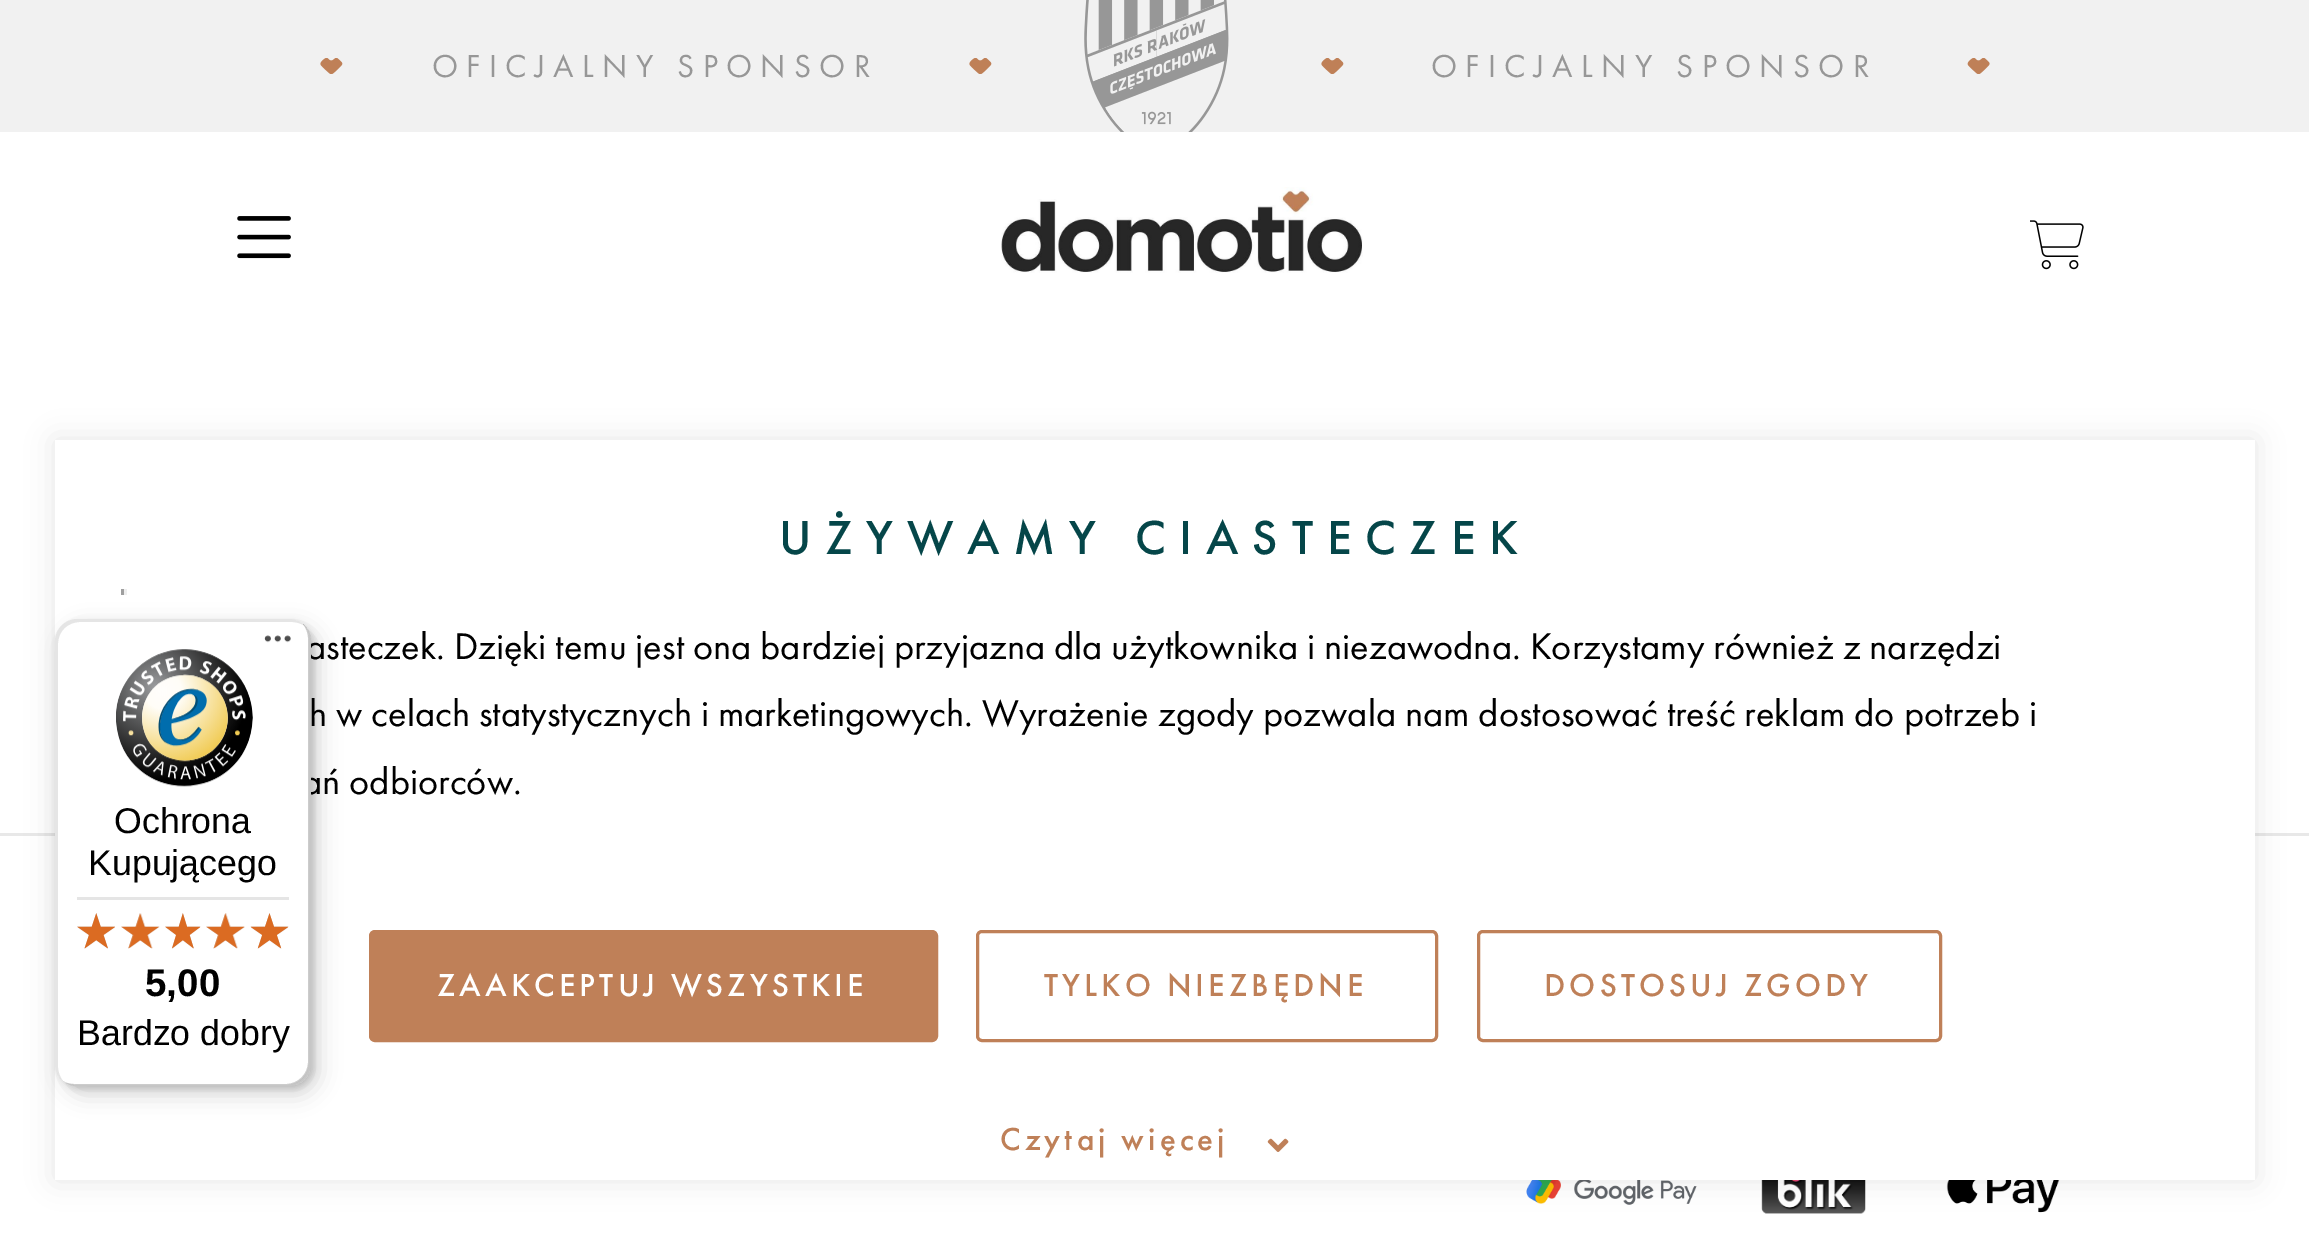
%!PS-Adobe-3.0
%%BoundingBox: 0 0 2309 1233
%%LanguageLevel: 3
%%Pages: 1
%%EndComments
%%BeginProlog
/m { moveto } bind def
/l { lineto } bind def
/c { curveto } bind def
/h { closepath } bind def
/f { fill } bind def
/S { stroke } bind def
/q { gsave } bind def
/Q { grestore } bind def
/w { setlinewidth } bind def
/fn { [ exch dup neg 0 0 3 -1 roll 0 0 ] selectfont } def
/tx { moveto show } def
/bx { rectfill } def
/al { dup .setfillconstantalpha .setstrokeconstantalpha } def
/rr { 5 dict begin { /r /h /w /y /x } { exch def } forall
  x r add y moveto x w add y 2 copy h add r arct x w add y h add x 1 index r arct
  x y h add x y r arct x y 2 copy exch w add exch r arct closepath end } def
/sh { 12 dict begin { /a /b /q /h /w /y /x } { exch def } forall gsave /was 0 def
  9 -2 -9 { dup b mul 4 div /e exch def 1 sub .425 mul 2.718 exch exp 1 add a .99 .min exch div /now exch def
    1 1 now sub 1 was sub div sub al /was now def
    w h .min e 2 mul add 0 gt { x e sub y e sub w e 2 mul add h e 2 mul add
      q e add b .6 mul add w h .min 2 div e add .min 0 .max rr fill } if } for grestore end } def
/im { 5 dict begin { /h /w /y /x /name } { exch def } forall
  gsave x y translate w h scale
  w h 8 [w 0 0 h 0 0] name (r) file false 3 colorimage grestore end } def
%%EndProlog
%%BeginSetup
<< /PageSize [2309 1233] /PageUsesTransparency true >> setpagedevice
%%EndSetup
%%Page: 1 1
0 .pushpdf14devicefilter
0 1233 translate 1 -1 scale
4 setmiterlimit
1 setgray
0 0 2309 1233 bx
0.91 setgray
0 833 2309 3 bx
(image19.raw) 1526 1180 171 25 im
(image20.raw) 1761 1180 105 34 im
(image21.raw) 1946 1180 114 33 im
0 setgray
55 440 2200 740 0 14 0.1 sh
1 setgray
55 440 2200 740 bx
0.933 setgray
124 589 3 6 bx
121 591 6 3 bx
0.624 setgray
121 589 3 6 bx
0 setgray
63 627 256 468 22 11 0.15 sh
58 622 256 467 22 3 0.15 sh
/FuturaPT-Regular 38.5 fn
(asteczek. Dzięki temu jest ona bardziej przyjazna dla użytkownika i niezawodna. Korzystamy również z narzędzi) 306 659 tx
(ań odbiorców.) 302 794 tx
1 setgray
55 619 256 467 22 rr f
0.1 al
0 setgray
80 622 m 292 622 l 297 622 302 624 305 626 c 301 622 296 619 289 619 c 77 619 l 65 619 55 629 55 641 c 55 1064 l 55 1071 58 1077 63 1081 c 60 1077 58 1072 58 1067 c 58 644 l 58 631 68 622 80 622 c h f
0.2 al
63 1081 m 67 1084 72 1086 77 1086 c 289 1086 l 301 1086 311 1076 311 1064 c 311 641 l 311 634 308 628 303 624 c 306 628 308 633 308 638 c 308 1062 l 308 1074 298 1084 286 1084 c 74 1084 l 70 1084 66 1083 63 1081 c h f
0.196 setgray
66 1083 m 69 1085 73 1086 77 1086 c 289 1086 l 301 1086 311 1076 311 1064 c 311 641 l 311 634 308 628 303 624 c 307 628 309 633 309 639 c 309 1063 l 309 1075 299 1085 287 1085 c 75 1085 l 72 1085 69 1084 66 1083 c h f
0.3 al
1 setgray
63 1081 m 67 1084 72 1086 77 1086 c 289 1086 l 301 1086 311 1076 311 1064 c 311 641 l 311 635 309 629 304 625 c 307 629 309 634 309 639 c 309 1063 l 309 1075 300 1085 287 1085 c 76 1085 l 71 1085 67 1084 63 1081 c h f
1 al
(image0.raw) 264 635 27 8 im
(image1.raw) 116 649 137 138 im
/LiberationSans-Regular 35.75 fn
0 setgray
(Ochrona) 114 833 tx
(Kupującego) 88 875 tx
0.898 setgray
77 897 212 3 bx
(image2.raw) 77 913 38 36 im
(image3.raw) 121 913 38 36 im
(image4.raw) 165 913 35 36 im
(image5.raw) 206 913 39 36 im
(image6.raw) 251 913 37 36 im
(image7.raw) 77 913 38 36 im
(image8.raw) 121 913 39 36 im
(image9.raw) 165 913 36 36 im
(image10.raw) 206 913 39 36 im
(image11.raw) 250 913 39 36 im
/LiberationSans-Bold 38.5 fn
0 setgray
(5,00) 145 996 tx
/LiberationSans-Regular 35.75 fn
(Bardzo dobry) 77 1045 tx
0.945 setgray
0 0 2309 132 bx
(image12.raw) 320 58 23 16 im
/FuturaPT-Regular 33 fn
0.592 setgray
432 77 m 8.25 0 (OFICJALNY SPONSOR) ashow
(image12.raw) 969 58 23 16 im
(image13.raw) 1084 0 145 132 im
(image12.raw) 1321 58 23 16 im
1431 77 m 8.25 0 (OFICJALNY SPONSOR) ashow
(image14.raw) 1967 58 23 16 im
(image15.raw) 237 216 54 43 im
(image16.raw) 1001 187 362 86 im
(image17.raw) 2030 220 54 50 im
/FuturaPT-Medium 49.5 fn
0.02 0.275 0.286 setrgbcolor
779 554 m 13.75 0 (UŻYWAMY CIASTECZEK) ashow
/FuturaPT-Regular 38.5 fn
0 setgray
(h w celach statystycznych i marketingowych. Wyrażenie zgody pozwala nam dostosować treść reklam do potrzeb i) 309 726 tx
0.749 0.502 0.345 setrgbcolor
370.5 931.5 566 109 4.5 rr q f Q
3 w
S
/FuturaPT-Medium 33 fn
1 setgray
437 996 m 4.1 0 (ZAAKCEPTUJ WSZYSTKIE) ashow
0.749 0.502 0.345 setrgbcolor
977.5 931.5 459 109 4.5 rr S
1044 996 m 4.1 0 (TYLKO NIEZBĘDNE) ashow
1478.5 931.5 462 109 4.5 rr S
1544 996 m 4.1 0 (DOSTOSUJ ZGODY) ashow
1000 1150 m 4.1 0 (Czytaj więcej) ashow
(image18.raw) 1267 1138 22 14 im
.poppdf14devicefilter showpage
%%EOF
